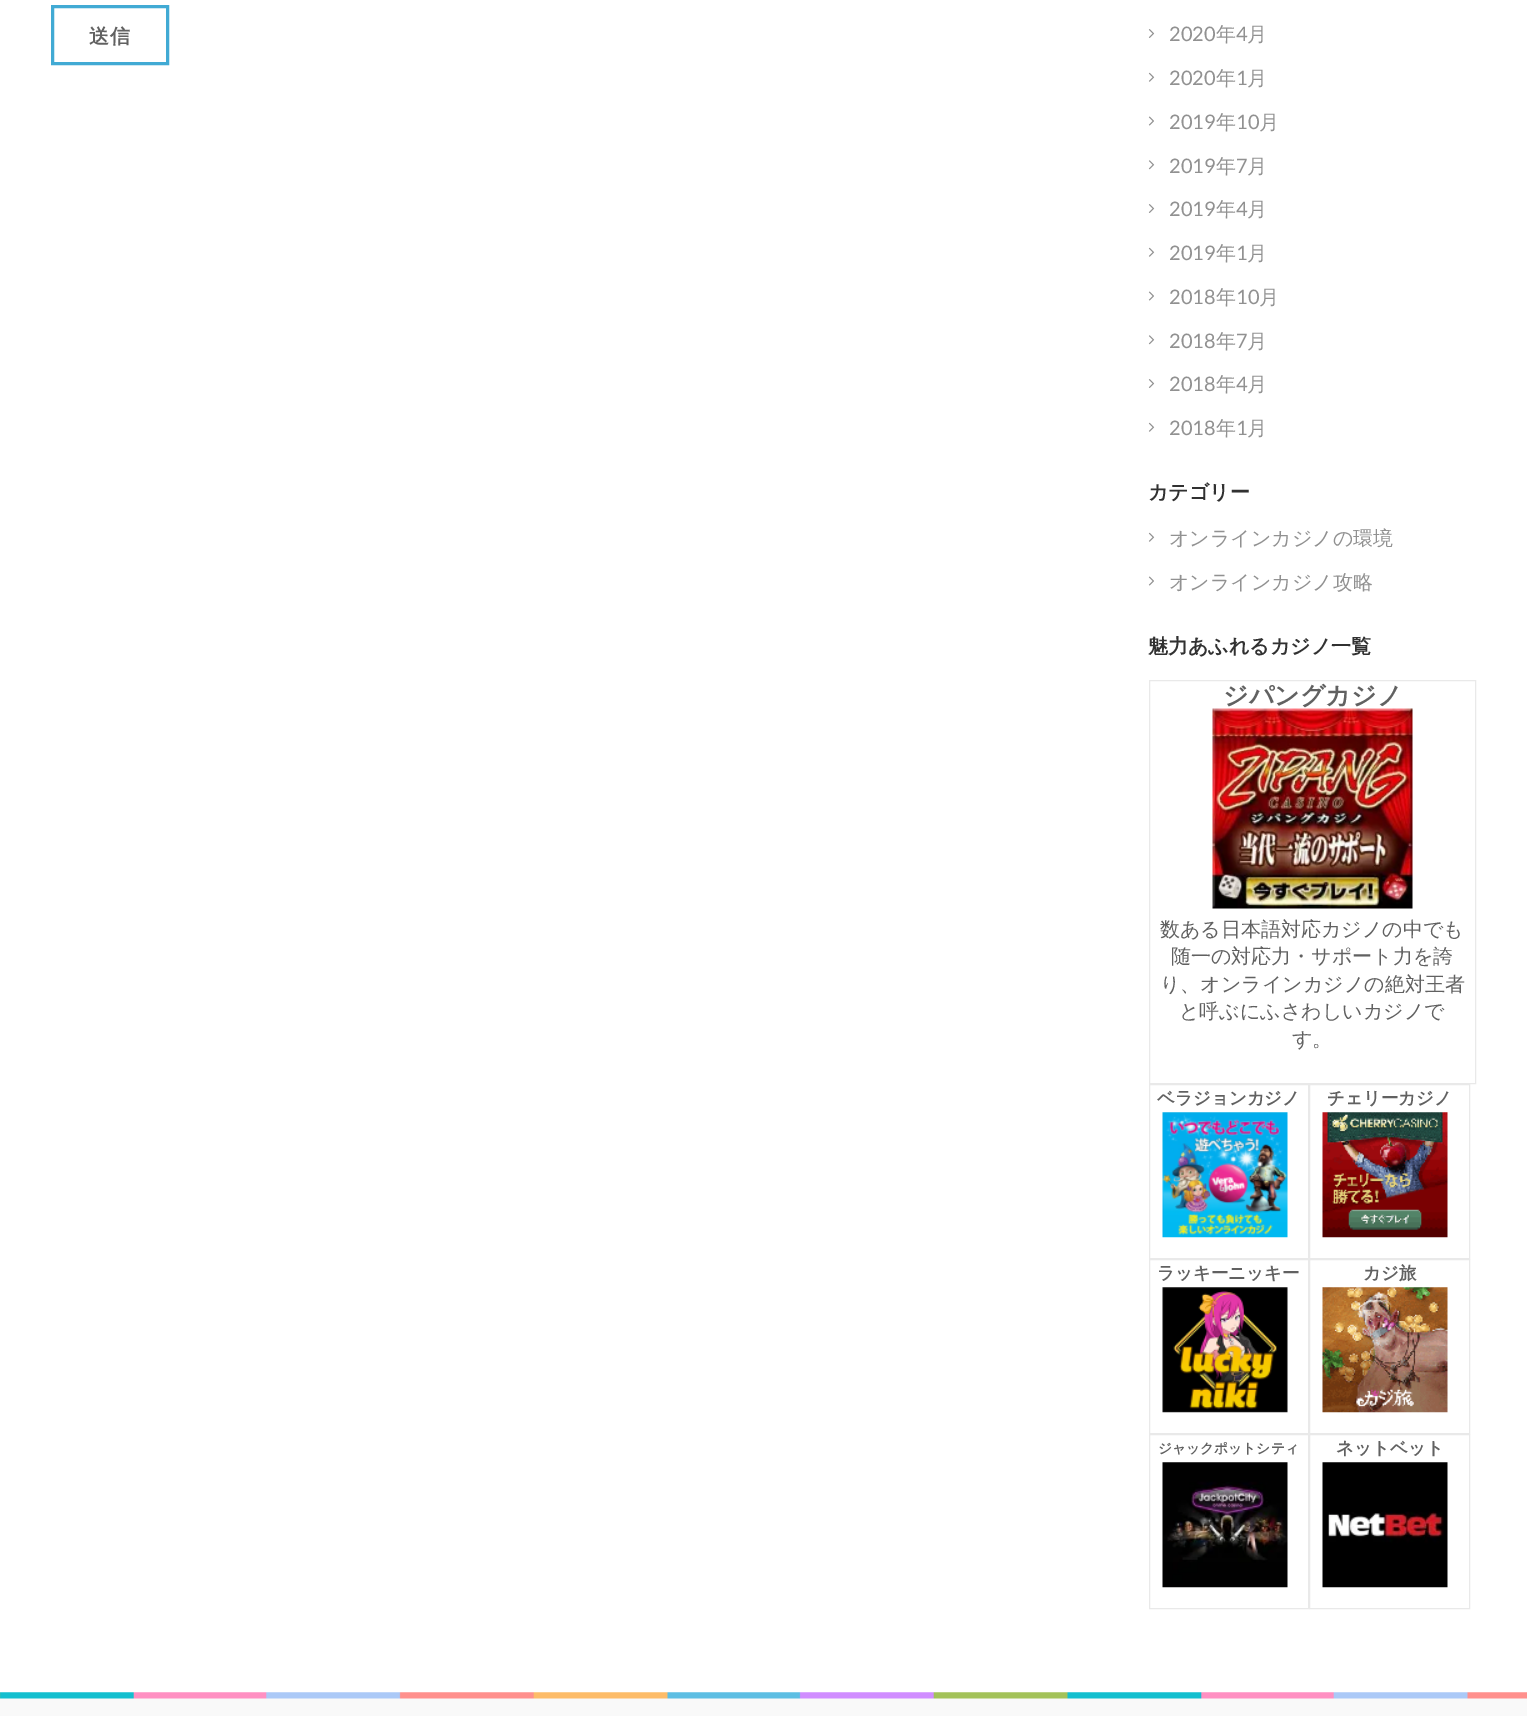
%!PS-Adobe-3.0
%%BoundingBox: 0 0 1527 1716
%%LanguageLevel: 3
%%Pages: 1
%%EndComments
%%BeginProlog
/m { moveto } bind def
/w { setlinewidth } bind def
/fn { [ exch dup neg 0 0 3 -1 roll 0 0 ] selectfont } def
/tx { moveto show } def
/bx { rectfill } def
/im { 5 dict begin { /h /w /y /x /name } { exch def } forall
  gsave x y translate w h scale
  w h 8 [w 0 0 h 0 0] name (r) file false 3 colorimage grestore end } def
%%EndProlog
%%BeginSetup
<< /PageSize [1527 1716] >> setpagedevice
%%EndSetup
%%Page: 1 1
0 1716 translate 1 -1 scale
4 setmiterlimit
1 setgray
0 0 1527 1716 bx
0.255 0.667 0.831 setrgbcolor
3 w
52.5 6.5 115 57 rectstroke
/WenQuanYiZenHei-Bold 20 fn
0.38 setgray
89 43 m 1 0 (送信) ashow
(image0.raw) 1148 29 7 9 im
/Lato-Regular 20 fn
0.569 setgray
(2020) 1169 41 tx
/WenQuanYiZenHei-Medium 20 fn
(年) 1216 41 tx
/Lato-Regular 20 fn
(4) 1236 41 tx
/WenQuanYiZenHei-Medium 20 fn
(月) 1247 41 tx
(image1.raw) 1148 72 7 10 im
/Lato-Regular 20 fn
(2020) 1169 85 tx
/WenQuanYiZenHei-Medium 20 fn
(年) 1216 85 tx
/Lato-Regular 20 fn
(1) 1236 85 tx
/WenQuanYiZenHei-Medium 20 fn
(月) 1247 85 tx
(image2.raw) 1148 116 6 10 im
/Lato-Regular 20 fn
(2019) 1169 129 tx
/WenQuanYiZenHei-Medium 20 fn
(年) 1216 129 tx
/Lato-Regular 20 fn
(10) 1236 129 tx
/WenQuanYiZenHei-Medium 20 fn
(月) 1259 129 tx
(image3.raw) 1148 160 7 10 im
/Lato-Regular 20 fn
(2019) 1169 173 tx
/WenQuanYiZenHei-Medium 20 fn
(年) 1216 173 tx
/Lato-Regular 20 fn
(7) 1236 173 tx
/WenQuanYiZenHei-Medium 20 fn
(月) 1247 173 tx
(image0.raw) 1148 204 7 9 im
/Lato-Regular 20 fn
(2019) 1169 216 tx
/WenQuanYiZenHei-Medium 20 fn
(年) 1216 216 tx
/Lato-Regular 20 fn
(4) 1236 216 tx
/WenQuanYiZenHei-Medium 20 fn
(月) 1247 216 tx
(image1.raw) 1148 247 7 10 im
/Lato-Regular 20 fn
(2019) 1169 260 tx
/WenQuanYiZenHei-Medium 20 fn
(年) 1216 260 tx
/Lato-Regular 20 fn
(1) 1236 260 tx
/WenQuanYiZenHei-Medium 20 fn
(月) 1247 260 tx
(image2.raw) 1148 291 6 10 im
/Lato-Regular 20 fn
(2018) 1169 304 tx
/WenQuanYiZenHei-Medium 20 fn
(年) 1216 304 tx
/Lato-Regular 20 fn
(10) 1236 304 tx
/WenQuanYiZenHei-Medium 20 fn
(月) 1259 304 tx
(image3.raw) 1148 335 7 10 im
/Lato-Regular 20 fn
(2018) 1169 348 tx
/WenQuanYiZenHei-Medium 20 fn
(年) 1216 348 tx
/Lato-Regular 20 fn
(7) 1236 348 tx
/WenQuanYiZenHei-Medium 20 fn
(月) 1247 348 tx
(image0.raw) 1148 379 7 9 im
/Lato-Regular 20 fn
(2018) 1169 391 tx
/WenQuanYiZenHei-Medium 20 fn
(年) 1216 391 tx
/Lato-Regular 20 fn
(4) 1236 391 tx
/WenQuanYiZenHei-Medium 20 fn
(月) 1247 391 tx
(image1.raw) 1148 422 7 10 im
/Lato-Regular 20 fn
(2018) 1169 435 tx
/WenQuanYiZenHei-Medium 20 fn
(年) 1216 435 tx
/Lato-Regular 20 fn
(1) 1236 435 tx
/WenQuanYiZenHei-Medium 20 fn
(月) 1247 435 tx
/WenQuanYiZenHei-Bold 20 fn
0.192 setgray
(カテゴリー) 1148 499 tx
(image1.raw) 1148 532 7 10 im
/WenQuanYiZenHei-Medium 20 fn
0.569 setgray
(オンラインカジノの環境) 1169 545 tx
(image2.raw) 1148 576 6 10 im
(オンラインカジノ攻略) 1169 589 tx
/WenQuanYiZenHei-Bold 20 fn
0.192 setgray
(魅力あふれるカジノ一覧) 1148 653 tx
0.914 setgray
1 w
1149.5 680.5 326 403 rectstroke
/WenQuanYiZenHei-Bold 25 fn
0.38 setgray
(ジパングカジノ) 1223 704 tx
(image4.raw) 1212 708 201 201 im
/WenQuanYiZenHei-Medium 20 fn
(数ある日本語対応カジノの中でも) 1160 936 tx
(随一の対応力・サポート力を誇) 1171 963 tx
(り、オンラインカジノの絶対王者) 1160 991 tx
(と呼ぶにふさわしいカジノで) 1179 1018 tx
(す。) 1292 1046 tx
0.914 setgray
1149.5 1084.5 159 174 rectstroke
/WenQuanYiZenHei-Bold 17.5 fn
0.38 setgray
(ベラジョンカジノ) 1157 1104 tx
(image5.raw) 1162 1112 126 126 im
0.914 setgray
1309.5 1084.5 160 174 rectstroke
0.38 setgray
(チェリーカジノ) 1327 1104 tx
(image6.raw) 1322 1112 126 126 im
0.914 setgray
1149.5 1259.5 159 174 rectstroke
0.38 setgray
(ラッキーニッキー) 1157 1279 tx
(image7.raw) 1162 1287 126 126 im
0.914 setgray
1309.5 1259.5 160 174 rectstroke
0.38 setgray
(カジ旅) 1363 1279 tx
(image8.raw) 1322 1287 126 126 im
0.914 setgray
1149.5 1434.5 159 174 rectstroke
/WenQuanYiZenHei-Bold 13.75 fn
0.38 setgray
(ジャックポットシティ) 1158 1453 tx
(image9.raw) 1162 1462 126 126 im
0.914 setgray
1309.5 1434.5 160 174 rectstroke
/WenQuanYiZenHei-Bold 17.5 fn
0.38 setgray
(ネットベット) 1336 1454 tx
(image10.raw) 1322 1462 126 126 im
0.976 setgray
0 1698 1527 18 bx
(image11.raw) 0 1692 1527 7 im
showpage
%%EOF
